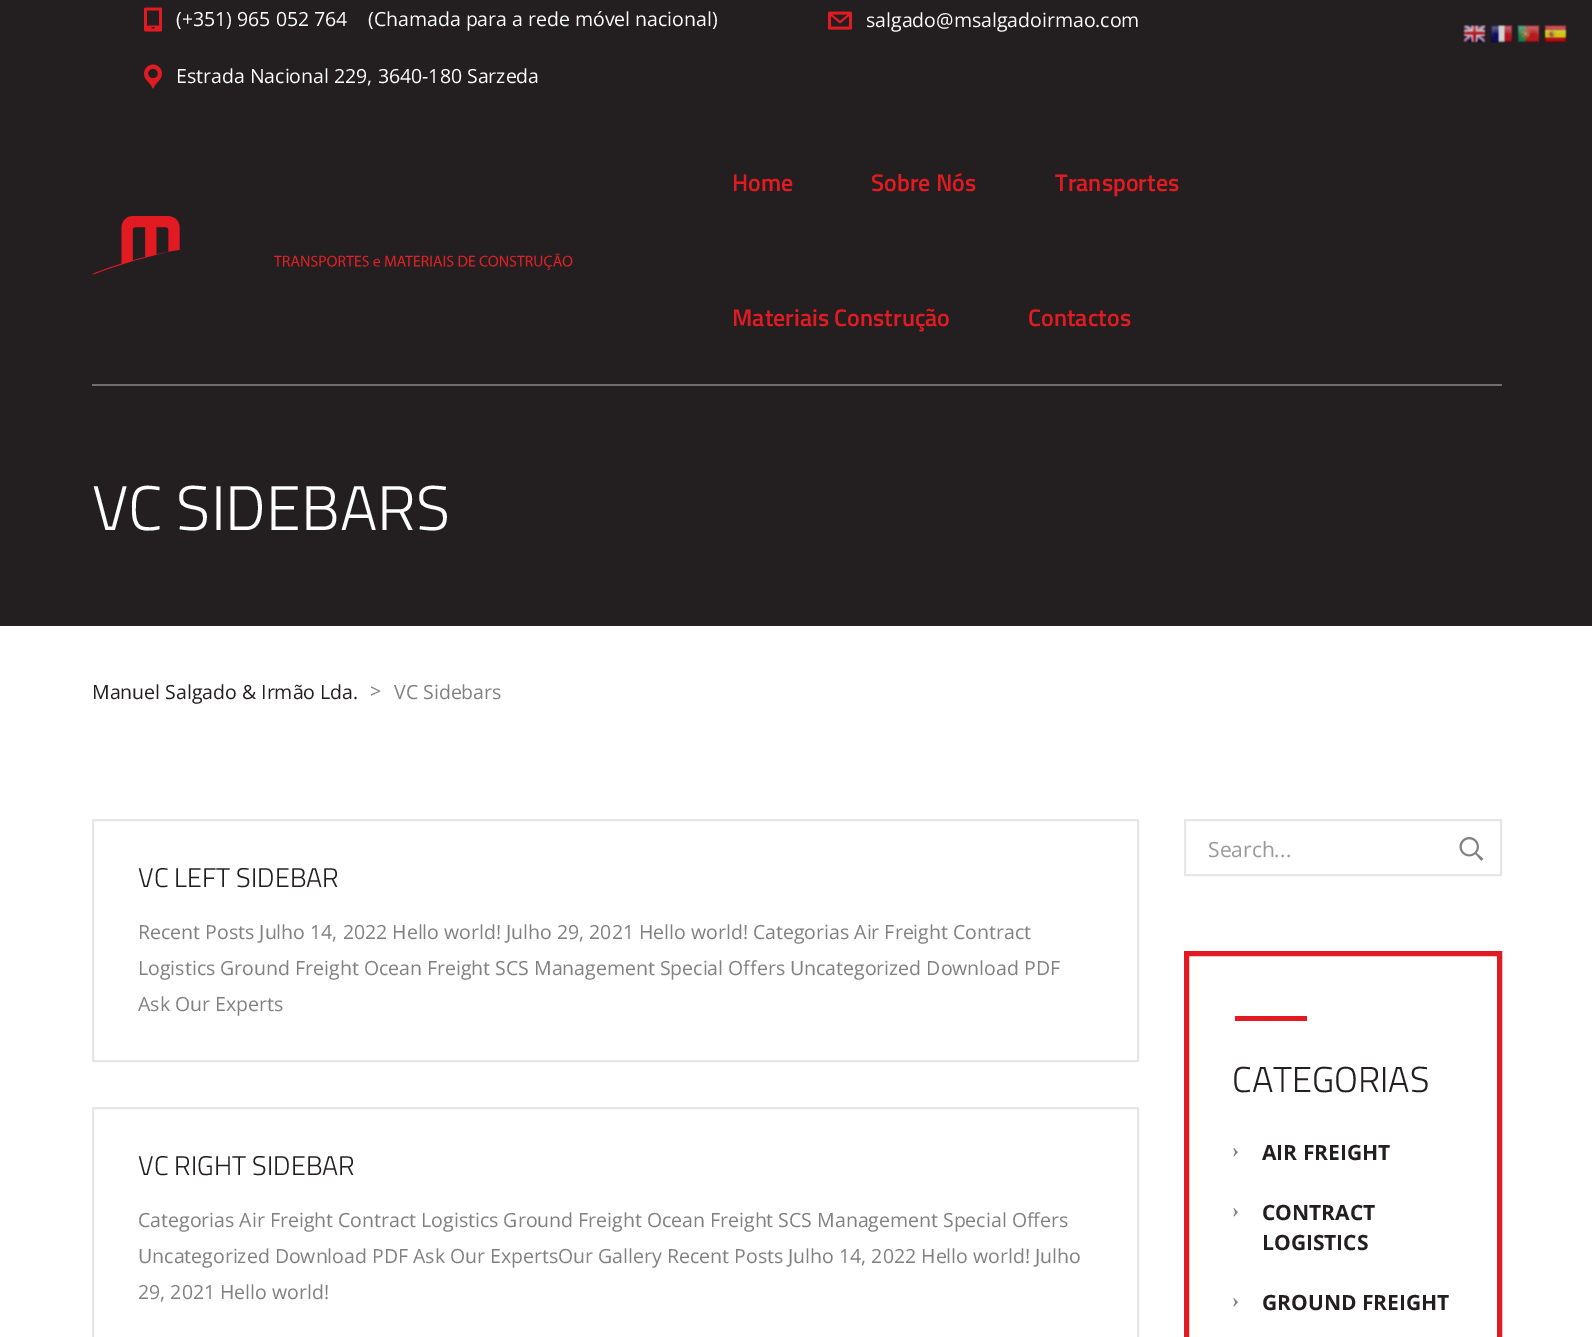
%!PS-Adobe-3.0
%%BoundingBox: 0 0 1592 1337
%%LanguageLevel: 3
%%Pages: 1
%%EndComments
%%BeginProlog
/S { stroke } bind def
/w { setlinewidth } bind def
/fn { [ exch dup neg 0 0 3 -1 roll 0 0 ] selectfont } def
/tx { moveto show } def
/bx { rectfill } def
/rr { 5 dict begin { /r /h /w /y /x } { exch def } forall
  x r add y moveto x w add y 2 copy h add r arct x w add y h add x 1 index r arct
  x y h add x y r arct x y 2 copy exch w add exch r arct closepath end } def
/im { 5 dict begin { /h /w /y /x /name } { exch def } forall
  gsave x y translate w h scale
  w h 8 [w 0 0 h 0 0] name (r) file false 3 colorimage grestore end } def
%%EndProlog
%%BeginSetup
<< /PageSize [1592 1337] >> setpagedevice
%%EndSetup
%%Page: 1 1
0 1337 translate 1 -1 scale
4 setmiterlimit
1 setgray
0 0 1592 1337 bx
0.137 0.122 0.125 setrgbcolor
0 0 1592 626 bx
(image0.raw) 144 7 18 25 im
/OpenSans-Regular 19.5 fn
1 setgray
(\(+351\) 965 052 764) 176 26 tx
(\(Chamada para a rede móvel nacional\)) 368 26 tx
(image1.raw) 828 11 24 19 im
(salgado@msalgadoirmao.com) 866 27 tx
(image2.raw) 144 64 18 25 im
(Estrada Nacional 229, 3640-180 Sarzeda) 176 83 tx
0.439 0.427 0.431 setrgbcolor
92 384 1410 2 bx
(image3.raw) 92 216 481 59 im
/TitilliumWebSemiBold-SemiBold 24 fn
0.886 0.106 0.137 setrgbcolor
(Home) 732 191 tx
(Sobre Nós) 871 191 tx
(Transportes) 1055 191 tx
(Materiais Construção) 732 326 tx
(Contactos) 1028 326 tx
/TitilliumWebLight-Light 63 fn
1 setgray
(VC SIDEBARS) 92 530 tx
/OpenSans-Regular 19.5 fn
0.137 0.122 0.125 setrgbcolor
(Manuel Salgado & Irmão Lda.) 92 699 tx
0.502 setgray
(>) 370 698 tx
(VC Sidebars) 394 699 tx
0.902 setgray
2 w
93 820 1045 241 0.5 rr S
/TitilliumWebLight-Light 27 fn
0.137 0.122 0.125 setrgbcolor
(VC LEFT SIDEBAR) 138 887 tx
/OpenSans-Regular 19.5 fn
0.502 setgray
(Recent Posts Julho 14, 2022 Hello world! Julho 29, 2021 Hello world! Categorias Air Freight Contract) 138 939 tx
(Logistics Ground Freight Ocean Freight SCS Management Special Offers Uncategorized Download PDF) 138 975 tx
(Ask Our Experts) 138 1011 tx
0.902 setgray
93 1108 1045 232 0.5 rr S
/TitilliumWebLight-Light 27 fn
0.137 0.122 0.125 setrgbcolor
(VC RIGHT SIDEBAR) 138 1175 tx
/OpenSans-Regular 19.5 fn
0.502 setgray
(Categorias Air Freight Contract Logistics Ground Freight Ocean Freight SCS Management Special Offers) 138 1227 tx
(Uncategorized Download PDF Ask Our ExpertsOur Gallery Recent Posts Julho 14, 2022 Hello world! Julho) 138 1263 tx
(29, 2021 Hello world!) 138 1299 tx
0.902 setgray
1185 820 316 55 rectstroke
/OpenSans-Regular 21 fn
0.6 setgray
(Search...) 1208 857 tx
(image4.raw) 1459 837 25 24 im
0.886 0.106 0.137 setrgbcolor
5 w
1186.5 953.5 313 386 rectstroke
1235 1016 72 5 bx
/TitilliumWebLight-Light 36 fn
0.137 0.122 0.125 setrgbcolor
(CATEGORIAS) 1232 1092 tx
/LiberationSerif-Bold 21 fn
0.502 setgray
(›) 1232 1157 tx
/OpenSans-Bold 21 fn
0.137 0.122 0.125 setrgbcolor
(AIR FREIGHT) 1262 1160 tx
/LiberationSerif-Bold 21 fn
0.502 setgray
(›) 1232 1217 tx
/OpenSans-Bold 21 fn
0.137 0.122 0.125 setrgbcolor
(CONTRACT) 1262 1220 tx
(LOGISTICS) 1262 1250 tx
/LiberationSerif-Bold 21 fn
0.502 setgray
(›) 1232 1307 tx
/OpenSans-Bold 21 fn
0.137 0.122 0.125 setrgbcolor
(GROUND FREIGHT) 1262 1310 tx
(image5.raw) 1463 24 23 19 im
(image6.raw) 1490 24 23 19 im
(image7.raw) 1517 24 23 19 im
(image8.raw) 1544 24 23 19 im
showpage
%%EOF
